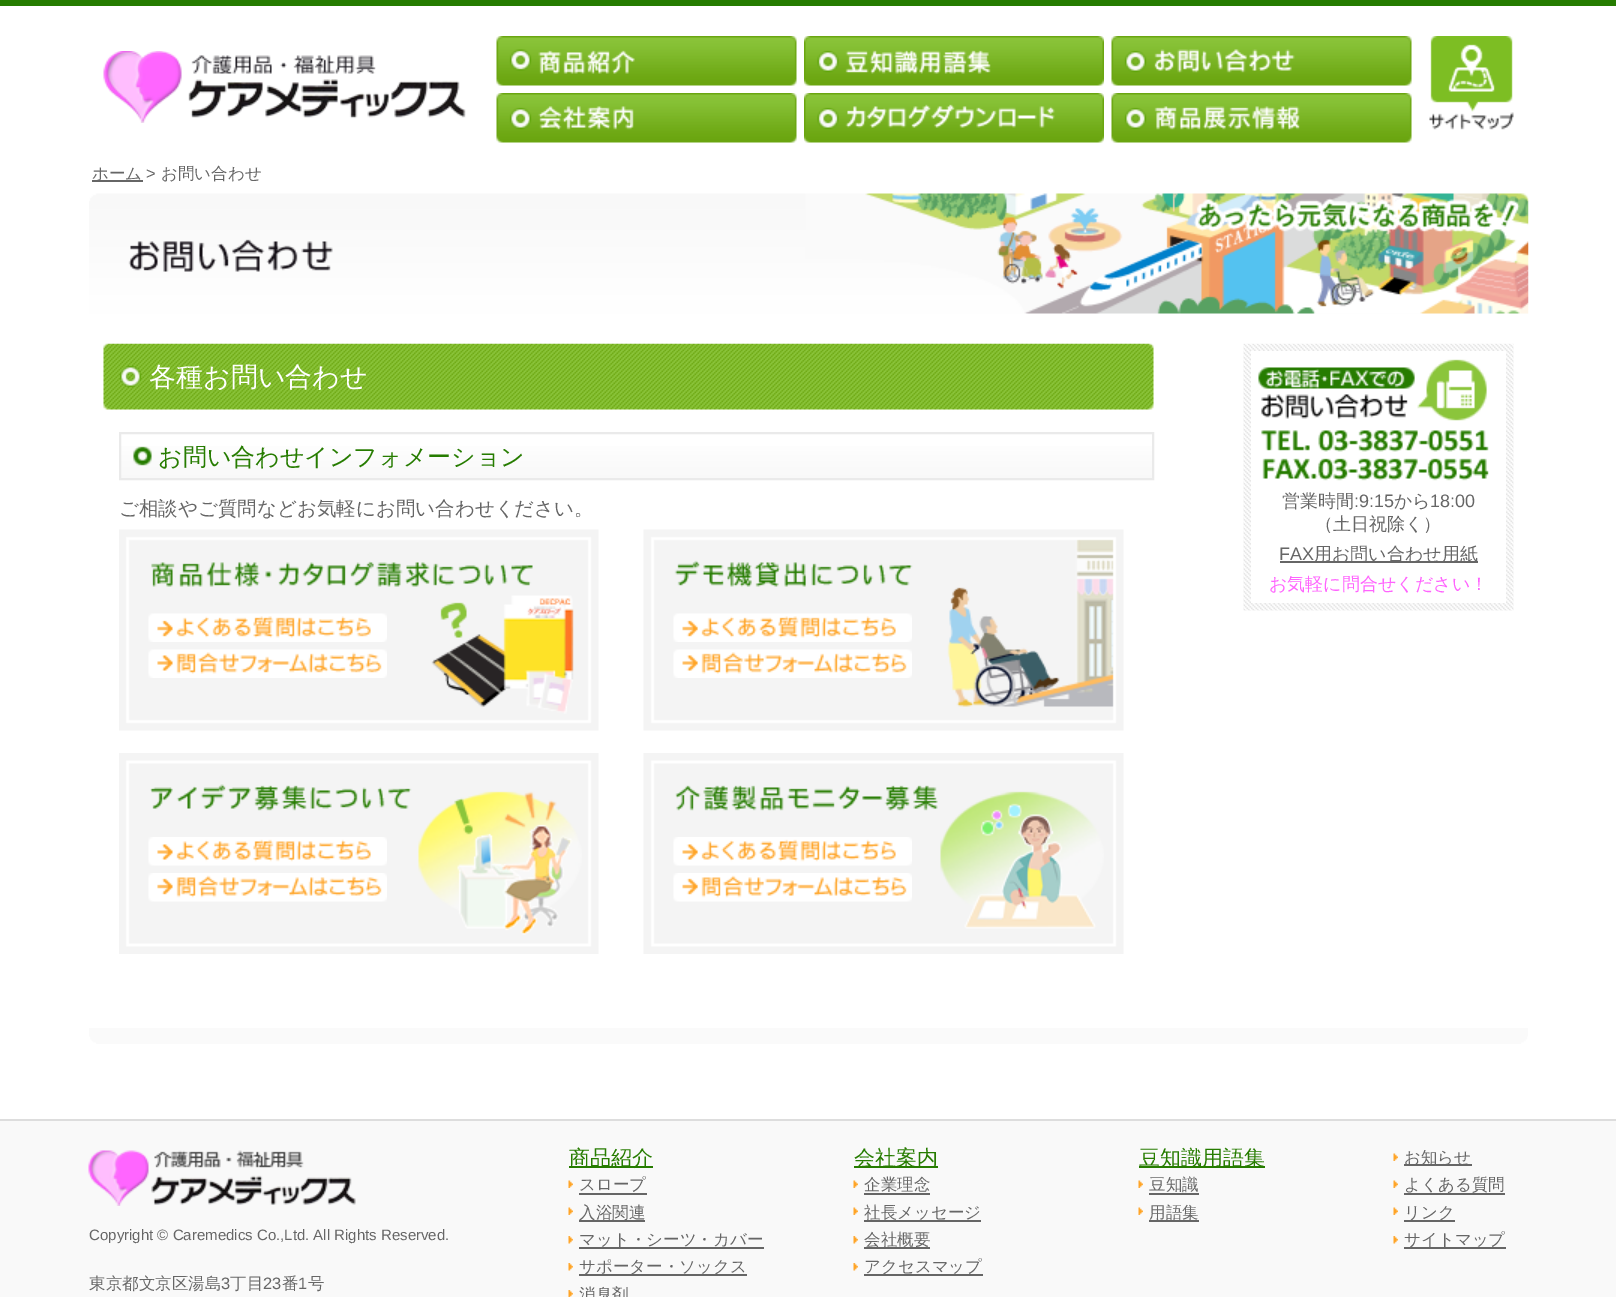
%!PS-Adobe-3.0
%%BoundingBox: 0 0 1616 1297
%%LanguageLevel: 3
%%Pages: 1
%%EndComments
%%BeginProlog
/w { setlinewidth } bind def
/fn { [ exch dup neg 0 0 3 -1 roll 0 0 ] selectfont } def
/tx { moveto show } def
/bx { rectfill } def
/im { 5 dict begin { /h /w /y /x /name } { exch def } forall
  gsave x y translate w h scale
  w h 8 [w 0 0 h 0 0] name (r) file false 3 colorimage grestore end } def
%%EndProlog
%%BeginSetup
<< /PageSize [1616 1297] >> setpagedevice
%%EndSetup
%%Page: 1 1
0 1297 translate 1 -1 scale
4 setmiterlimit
1 setgray
0 0 1616 1297 bx
0.149 0.486 0 setrgbcolor
0 0 1616 6 bx
(image0.raw) 103 51 363 72 im
(image1.raw) 496 36 301 50 im
(image2.raw) 804 36 300 50 im
(image3.raw) 1111 36 301 50 im
(image4.raw) 496 93 301 50 im
(image5.raw) 804 93 300 50 im
(image6.raw) 1111 93 301 50 im
(image7.raw) 1429 36 85 94 im
0.4 setgray
92 180 51 2 bx
/WenQuanYiZenHei-Medium 16.5 fn
(ホーム) 92 179 tx
/LiberationSans-Regular 16.5 fn
(>) 146 179 tx
/WenQuanYiZenHei-Medium 16.5 fn
(お問い合わせ) 161 179 tx
(image8.raw) 89 193 1440 121 im
(image9.raw) 128 239 205 33 im
(image10.raw) 89 1028 1439 16 im
(image11.raw) 103 343 1051 67 im
/WenQuanYiZenHei-Medium 27 fn
1 setgray
(各種お問い合わせ) 149 386 tx
(image12.raw) 121 446 1031 32 im
0.918 setgray
2 w
120 433 1033 46 rectstroke
/WenQuanYiZenHei-Medium 24 fn
0.149 0.486 0 setrgbcolor
(お問い合わせインフォメーション) 158 465 tx
/WenQuanYiZenHei-Medium 19.5 fn
0.4 setgray
(ご相談やご質問などお気軽にお問い合わせください。) 119 515 tx
(image13.raw) 119 529 480 202 im
(image14.raw) 151 561 382 26 im
(image15.raw) 148 613 239 29 im
(image16.raw) 148 649 239 29 im
(image17.raw) 643 529 481 202 im
(image18.raw) 674 560 239 27 im
(image19.raw) 673 613 239 29 im
(image20.raw) 673 649 239 29 im
(image21.raw) 119 753 480 201 im
(image22.raw) 150 784 262 27 im
(image23.raw) 148 837 239 29 im
(image24.raw) 148 873 239 29 im
(image25.raw) 643 753 481 201 im
(image26.raw) 675 785 263 26 im
(image27.raw) 673 837 239 29 im
(image28.raw) 673 873 239 29 im
(image29.raw) 1243 343 271 268 im
1 setgray
1251 351 255 252 bx
(image30.raw) 1258 359 231 122 im
/WenQuanYiZenHei-Medium 18 fn
0.4 setgray
(営業時間) 1282 507 tx
/LiberationSans-Regular 18 fn
(:9:15) 1354 507 tx
/WenQuanYiZenHei-Medium 18 fn
(から) 1394 507 tx
/LiberationSans-Regular 18 fn
(18:00) 1430 507 tx
/WenQuanYiZenHei-Medium 18 fn
(（土日祝除く）) 1315 530 tx
/LiberationSans-Regular 18 fn
(FAX) 1279 560 tx
1280 561 198 2 bx
/WenQuanYiZenHei-Medium 18 fn
(用お問い合わせ用紙) 1314 560 tx
1 0.392 0.996 setrgbcolor
(お気軽に問合せください！) 1269 590 tx
0.976 setgray
0 1121 1616 176 bx
0.867 setgray
0 1119 1616 2 bx
(image31.raw) 88 1150 268 56 im
0.149 0.486 0 setrgbcolor
569 1166 84 2 bx
/WenQuanYiZenHei-Medium 21 fn
(商品紹介) 569 1165 tx
(image32.raw) 568 1180 5 8 im
/WenQuanYiZenHei-Medium 16.5 fn
0.4 setgray
(スロープ) 579 1190 tx
579 1193 68 2 bx
(image32.raw) 568 1207 5 8 im
579 1220 66 2 bx
(入浴関連) 579 1218 tx
(image33.raw) 568 1236 5 8 im
579 1247 185 2 bx
(マット・シーツ・カバー) 579 1245 tx
(image33.raw) 568 1263 5 8 im
579 1274 168 2 bx
(サポーター・ソックス) 579 1272 tx
(image34.raw) 568 1290 5 7 im
(消臭剤) 579 1300 tx
0.149 0.486 0 setrgbcolor
854 1166 84 2 bx
/WenQuanYiZenHei-Medium 21 fn
(会社案内) 854 1165 tx
(image35.raw) 853 1180 5 8 im
/WenQuanYiZenHei-Medium 16.5 fn
0.4 setgray
(企業理念) 864 1190 tx
864 1193 66 2 bx
(image35.raw) 853 1207 5 8 im
864 1220 117 2 bx
(社長メッセージ) 864 1218 tx
(image36.raw) 853 1236 5 8 im
864 1247 66 2 bx
(会社概要) 864 1245 tx
(image36.raw) 853 1263 5 8 im
864 1274 119 2 bx
(アクセスマップ) 864 1272 tx
0.149 0.486 0 setrgbcolor
1139 1166 126 2 bx
/WenQuanYiZenHei-Medium 21 fn
(豆知識用語集) 1139 1165 tx
(image32.raw) 1138 1180 5 8 im
/WenQuanYiZenHei-Medium 16.5 fn
0.4 setgray
(豆知識) 1149 1190 tx
1149 1193 50 2 bx
(image32.raw) 1138 1207 5 8 im
1149 1220 50 2 bx
(用語集) 1149 1218 tx
(image32.raw) 1393 1153 5 8 im
1404 1164 68 2 bx
(お知らせ) 1404 1163 tx
(image32.raw) 1393 1180 5 8 im
(よくある質問) 1404 1190 tx
1404 1193 101 2 bx
(image32.raw) 1393 1207 5 8 im
1404 1220 51 2 bx
(リンク) 1404 1218 tx
(image33.raw) 1393 1236 5 8 im
1404 1247 102 2 bx
(サイトマップ) 1404 1245 tx
/LiberationSans-Regular 15 fn
(Copyright © Caremedics Co.,Ltd. All Rights Reserved.) 89 1240 tx
/WenQuanYiZenHei-Medium 16.5 fn
(東京都文京区湯島) 89 1289 tx
/LiberationSans-Regular 16.5 fn
(3) 221 1289 tx
/WenQuanYiZenHei-Medium 16.5 fn
(丁目) 230 1289 tx
/LiberationSans-Regular 16.5 fn
(23) 263 1289 tx
/WenQuanYiZenHei-Medium 16.5 fn
(番) 282 1289 tx
/LiberationSans-Regular 16.5 fn
(1) 298 1289 tx
/WenQuanYiZenHei-Medium 16.5 fn
(号) 308 1289 tx
showpage
%%EOF
